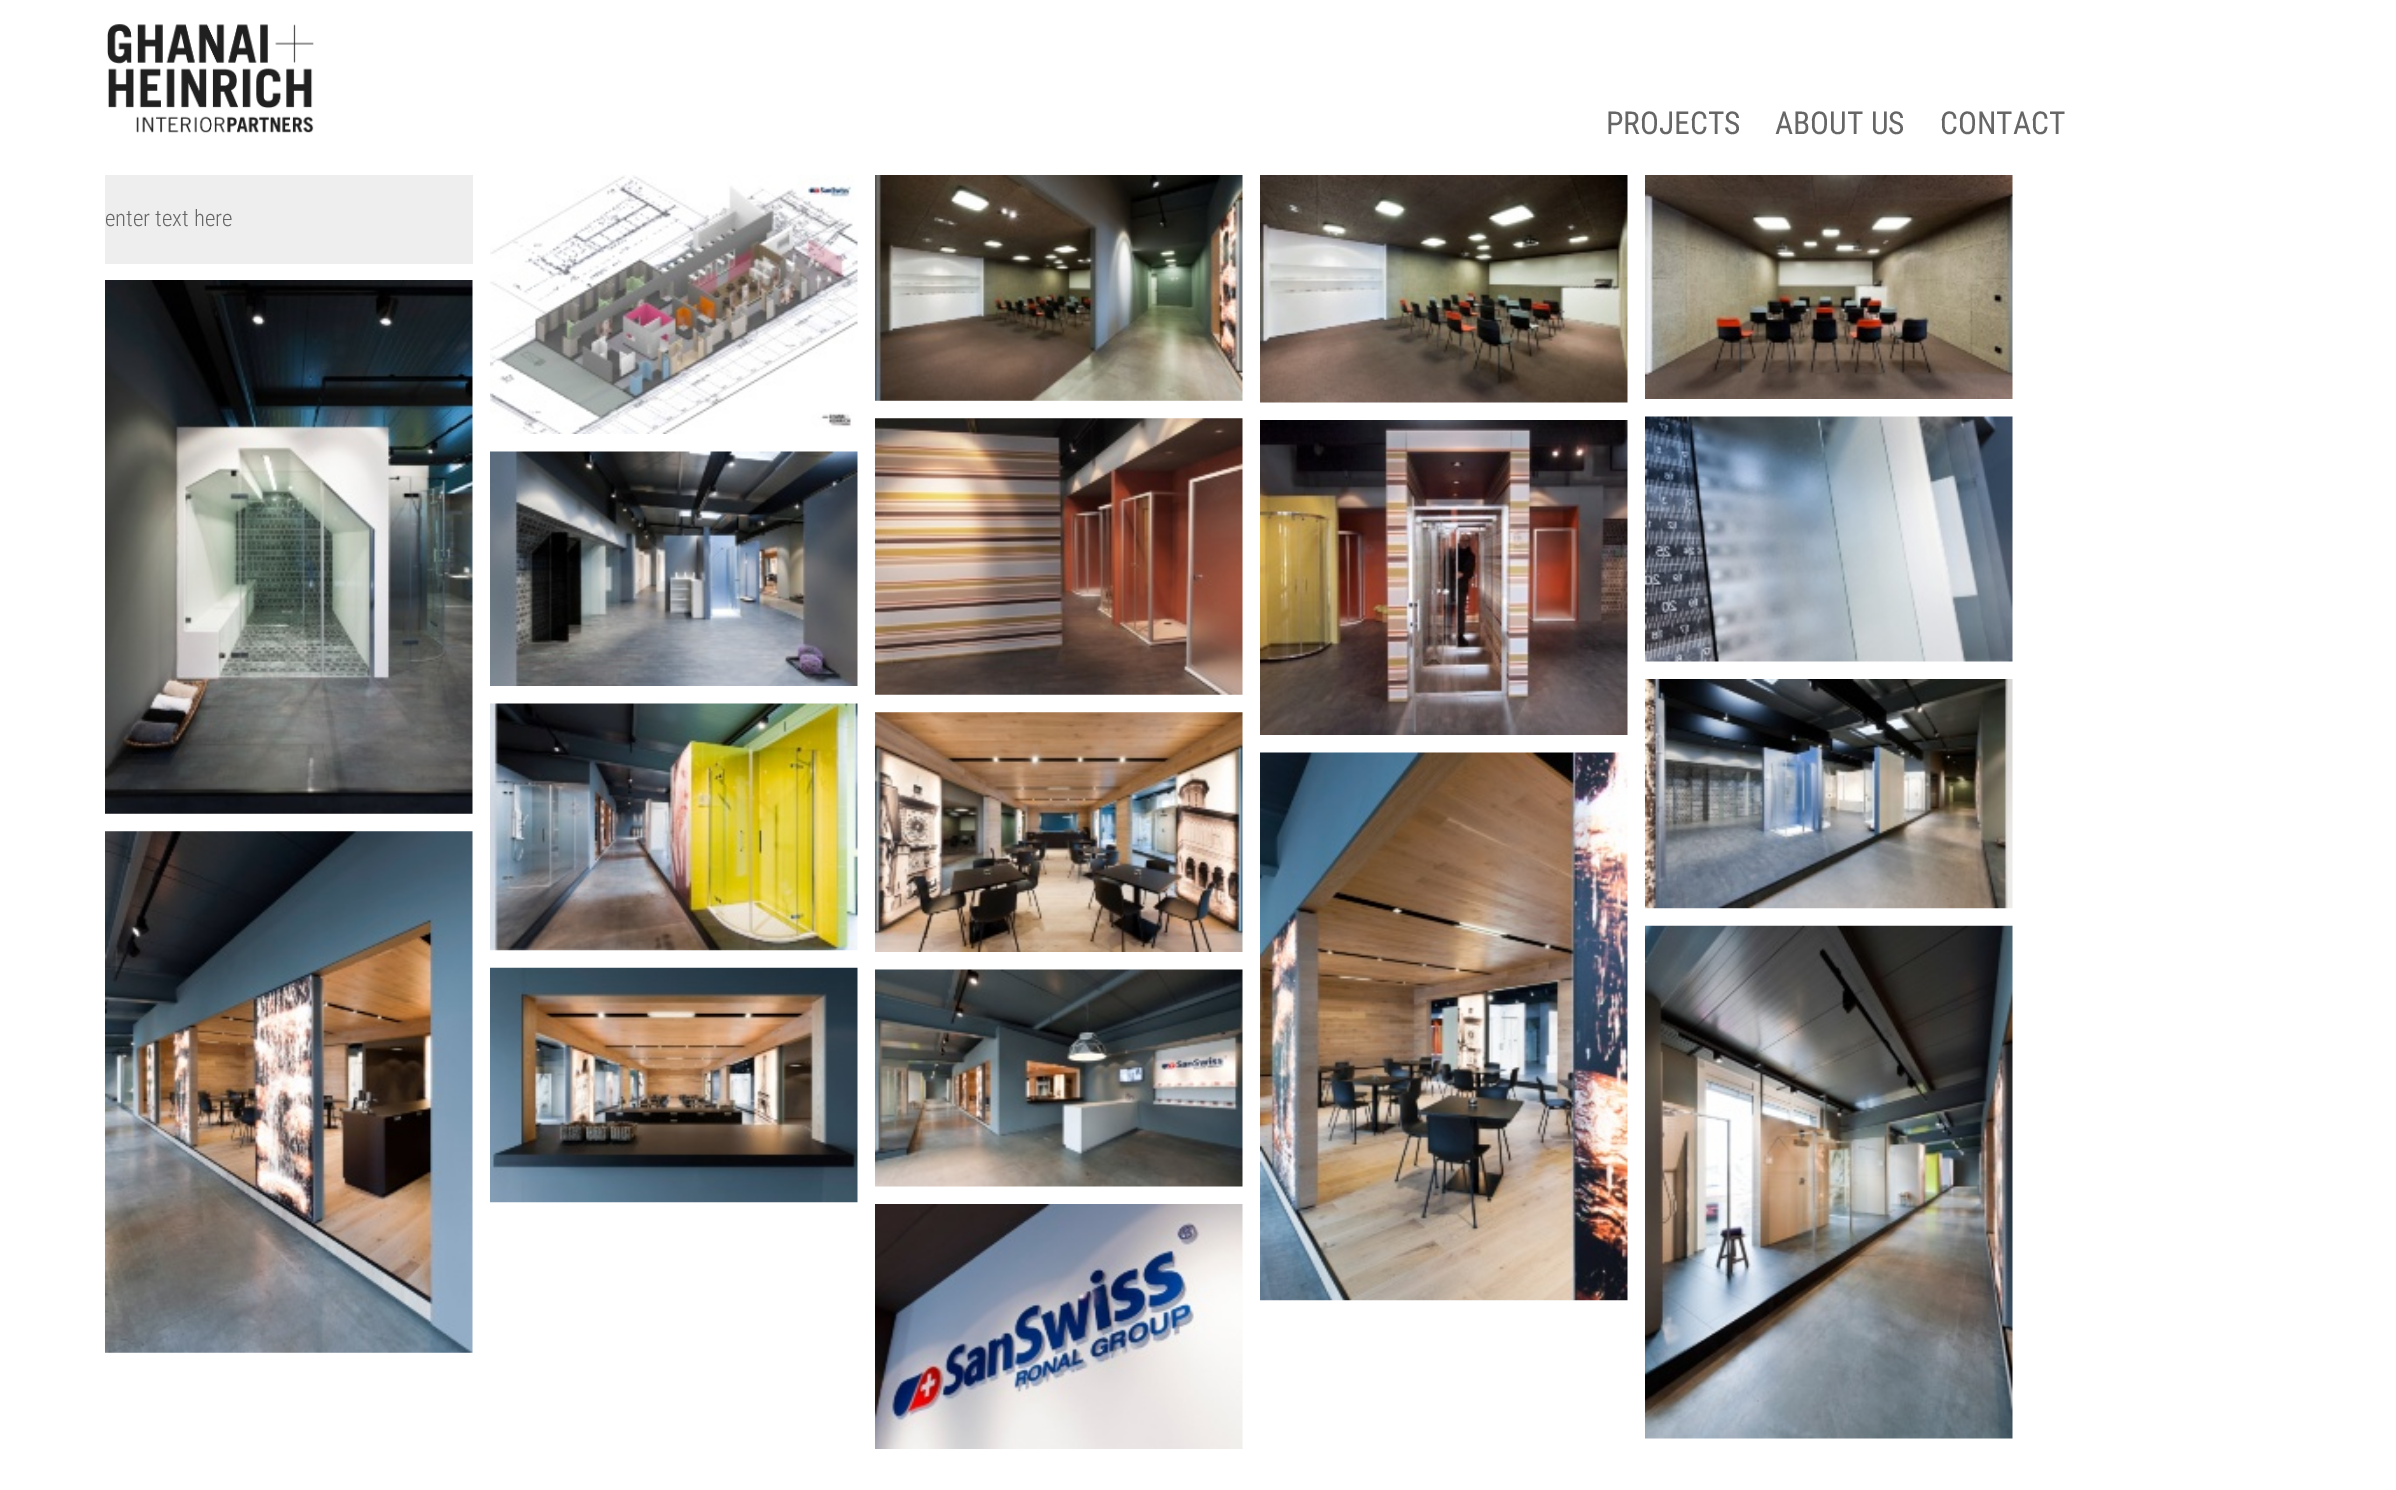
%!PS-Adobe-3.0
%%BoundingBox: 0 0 2396 1490
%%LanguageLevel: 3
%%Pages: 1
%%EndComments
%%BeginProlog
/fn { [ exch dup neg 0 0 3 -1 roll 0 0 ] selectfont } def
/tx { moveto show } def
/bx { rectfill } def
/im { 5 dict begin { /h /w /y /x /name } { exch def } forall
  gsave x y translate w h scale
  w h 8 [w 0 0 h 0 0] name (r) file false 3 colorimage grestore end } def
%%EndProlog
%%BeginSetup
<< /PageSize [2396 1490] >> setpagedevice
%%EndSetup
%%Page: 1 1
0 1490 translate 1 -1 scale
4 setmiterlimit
1 setgray
0 0 2396 1490 bx
(image0.raw) 107 24 207 109 im
/RobotoCondensed-Regular 31.5 fn
0.4 setgray
(PROJECTS) 1606 134 tx
(ABOUT US) 1775 134 tx
(CONTACT) 1940 134 tx
0.933 setgray
105 175 368 89 bx
/RobotoCondensed-Light 22.75 fn
0.4 setgray
(enter text here) 105 226 tx
(image1.raw) 490 175 368 259 im
(image2.raw) 875 175 368 226 im
(image3.raw) 1260 175 368 228 im
(image4.raw) 1645 175 368 224 im
(image5.raw) 105 280 368 534 im
(image6.raw) 490 451 368 235 im
(image7.raw) 875 418 368 277 im
(image8.raw) 1260 420 368 315 im
(image9.raw) 1645 416 368 246 im
(image10.raw) 105 831 368 522 im
(image11.raw) 490 703 368 248 im
(image12.raw) 875 712 368 240 im
(image13.raw) 1260 752 368 549 im
(image14.raw) 1645 679 368 230 im
(image15.raw) 490 967 368 236 im
(image16.raw) 875 969 368 218 im
(image17.raw) 1645 925 368 514 im
(image18.raw) 875 1204 368 245 im
showpage
%%EOF
